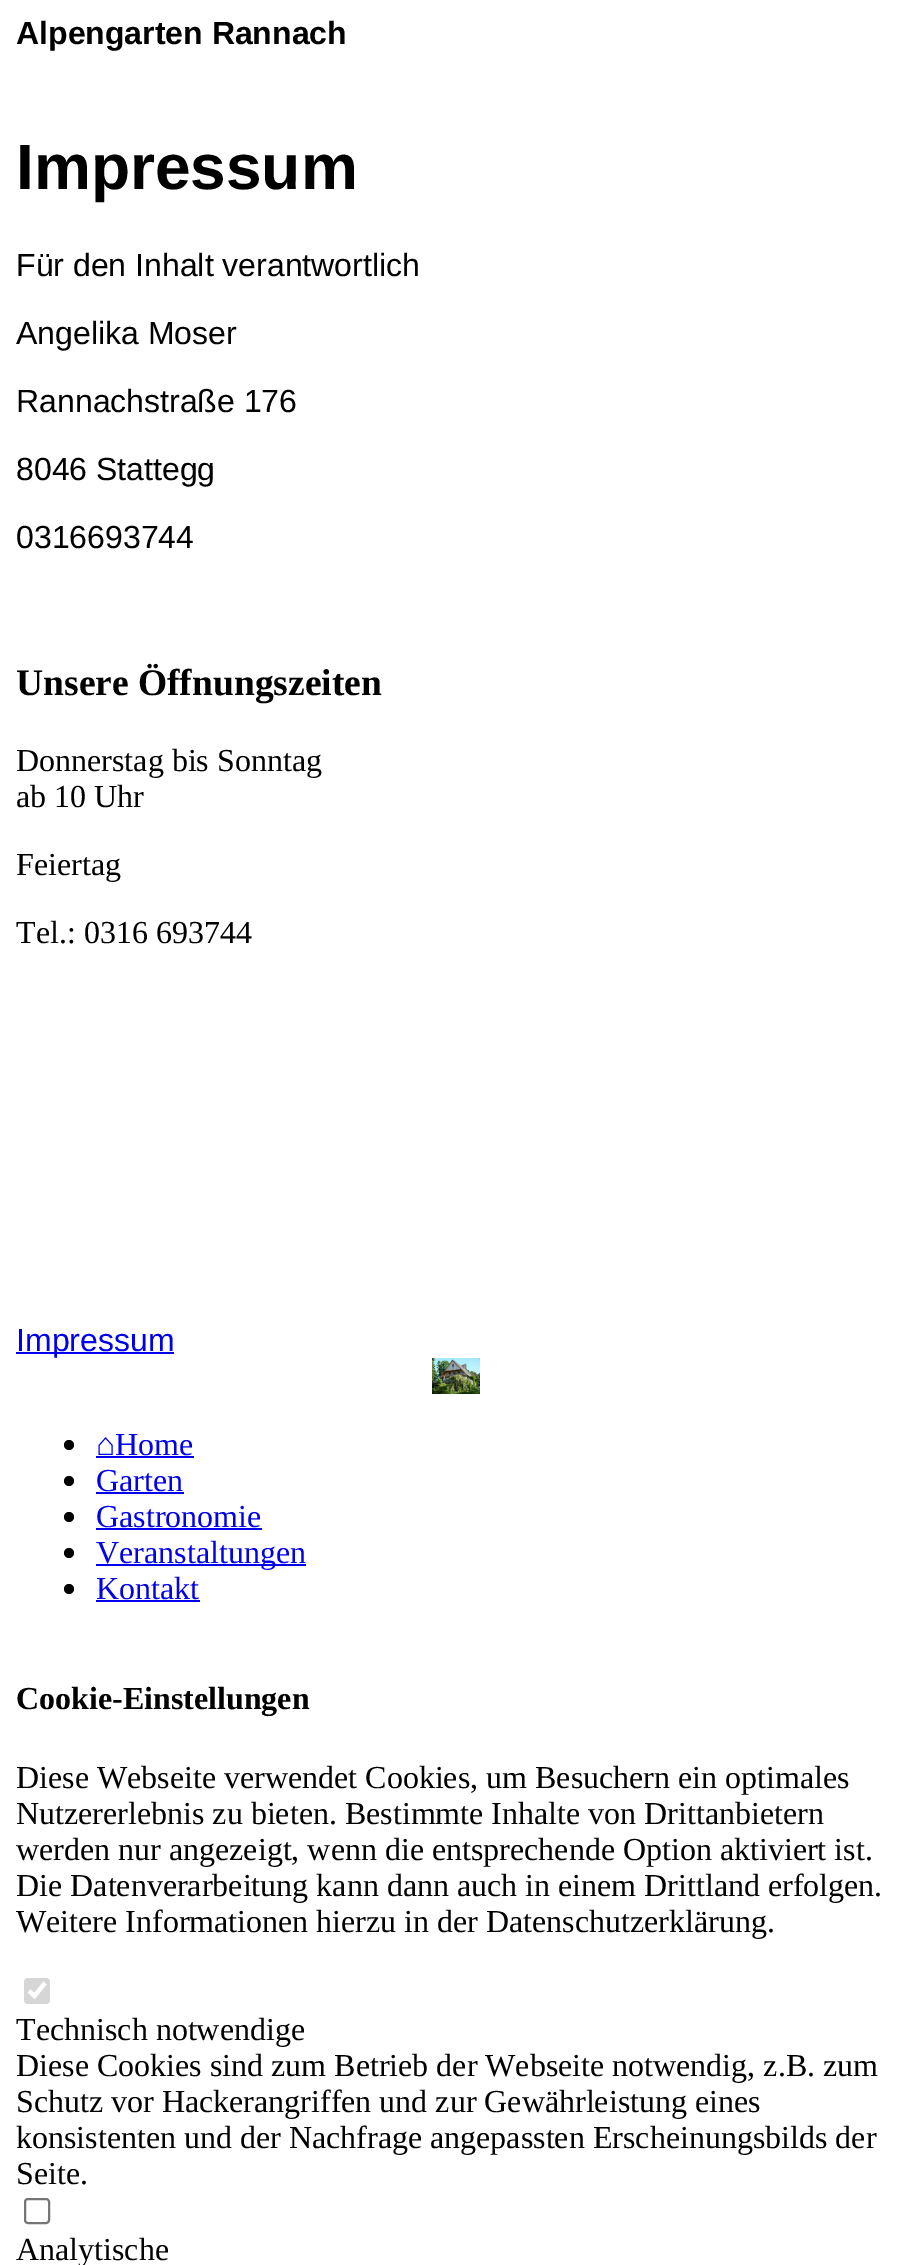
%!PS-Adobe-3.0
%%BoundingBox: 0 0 912 2265
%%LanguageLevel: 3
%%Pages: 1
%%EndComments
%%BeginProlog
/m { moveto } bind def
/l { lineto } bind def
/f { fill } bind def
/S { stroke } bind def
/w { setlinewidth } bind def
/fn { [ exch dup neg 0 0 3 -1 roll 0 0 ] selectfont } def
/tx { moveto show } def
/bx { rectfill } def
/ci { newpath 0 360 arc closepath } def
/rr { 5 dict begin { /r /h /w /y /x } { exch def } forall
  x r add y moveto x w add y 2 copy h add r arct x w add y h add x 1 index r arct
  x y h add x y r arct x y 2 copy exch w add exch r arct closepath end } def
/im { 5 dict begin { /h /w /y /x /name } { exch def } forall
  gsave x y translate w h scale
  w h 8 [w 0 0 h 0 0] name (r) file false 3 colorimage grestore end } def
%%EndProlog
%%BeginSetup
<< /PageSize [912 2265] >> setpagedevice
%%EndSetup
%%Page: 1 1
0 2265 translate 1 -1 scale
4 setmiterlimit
1 setgray
0 0 912 2265 bx
/LiberationSans-Bold 32 fn
0 setgray
(Alpengarten Rannach) 16 44 tx
/LiberationSans-Bold 64 fn
(Impressum) 16 189 tx
/LiberationSans-Regular 32 fn
(Für den Inhalt verantwortlich) 16 276 tx
(Angelika Moser) 16 344 tx
(Rannachstraße 176) 16 412 tx
(8046 Stattegg) 16 480 tx
(0316693744) 16 548 tx
/LiberationSerif-Bold 37.5 fn
(Unsere Öffnungszeiten) 16 695 tx
/LiberationSerif-Regular 32 fn
(Donnerstag bis Sonntag) 16 771 tx
(ab 10 Uhr) 16 807 tx
(Feiertag) 16 875 tx
(Tel.: 0316 693744) 16 943 tx
0 0 0.933 setrgbcolor
16 1352 158 2 bx
/LiberationSans-Regular 32 fn
(Impressum) 16 1351 tx
(image0.raw) 432 1358 48 36 im
0 setgray
69 1445 5 ci f
/LiberationSerif-Regular 32 fn
0 0 0.933 setrgbcolor
(⌂Home) 96 1455 tx
96 1456 98 2 bx
0 setgray
69 1481 5 ci f
0 0 0.933 setrgbcolor
(Garten) 96 1491 tx
96 1492 88 2 bx
0 setgray
69 1517 5 ci f
0 0 0.933 setrgbcolor
(Gastronomie) 96 1527 tx
96 1528 166 2 bx
0 setgray
69 1553 5 ci f
0 0 0.933 setrgbcolor
96 1564 210 2 bx
(Veranstaltungen) 96 1563 tx
0 setgray
69 1589 5 ci f
0 0 0.933 setrgbcolor
(Kontakt) 96 1599 tx
96 1600 104 2 bx
/LiberationSerif-Bold 32 fn
0 setgray
(Cookie-Einstellungen) 16 1709 tx
/LiberationSerif-Regular 32 fn
(Diese Webseite verwendet Cookies, um Besuchern ein optimales) 16 1788 tx
(Nutzererlebnis zu bieten. Bestimmte Inhalte von Drittanbietern) 16 1824 tx
(werden nur angezeigt, wenn die entsprechende Option aktiviert ist.) 16 1860 tx
(Die Datenverarbeitung kann dann auch in einem Drittland erfolgen.) 16 1896 tx
(Weitere Informationen hierzu in der Datenschutzerklärung.) 16 1932 tx
0.839 setgray
24 1978 26 26 4 rr f
1 setgray
4.2 w
29 1991 m 34.5 1996 l 45 1983 l S
0 setgray
(Technisch notwendige) 16 2040 tx
(Diese Cookies sind zum Betrieb der Webseite notwendig, z.B. zum) 16 2076 tx
(Schutz vor Hackerangriffen und zur Gewährleistung eines) 16 2112 tx
(konsistenten und der Nachfrage angepassten Erscheinungsbilds der) 16 2148 tx
(Seite.) 16 2184 tx
0.463 setgray
2 w
25 2199 24 24 3 rr S
0 setgray
(Analytische) 16 2260 tx
showpage
%%EOF
